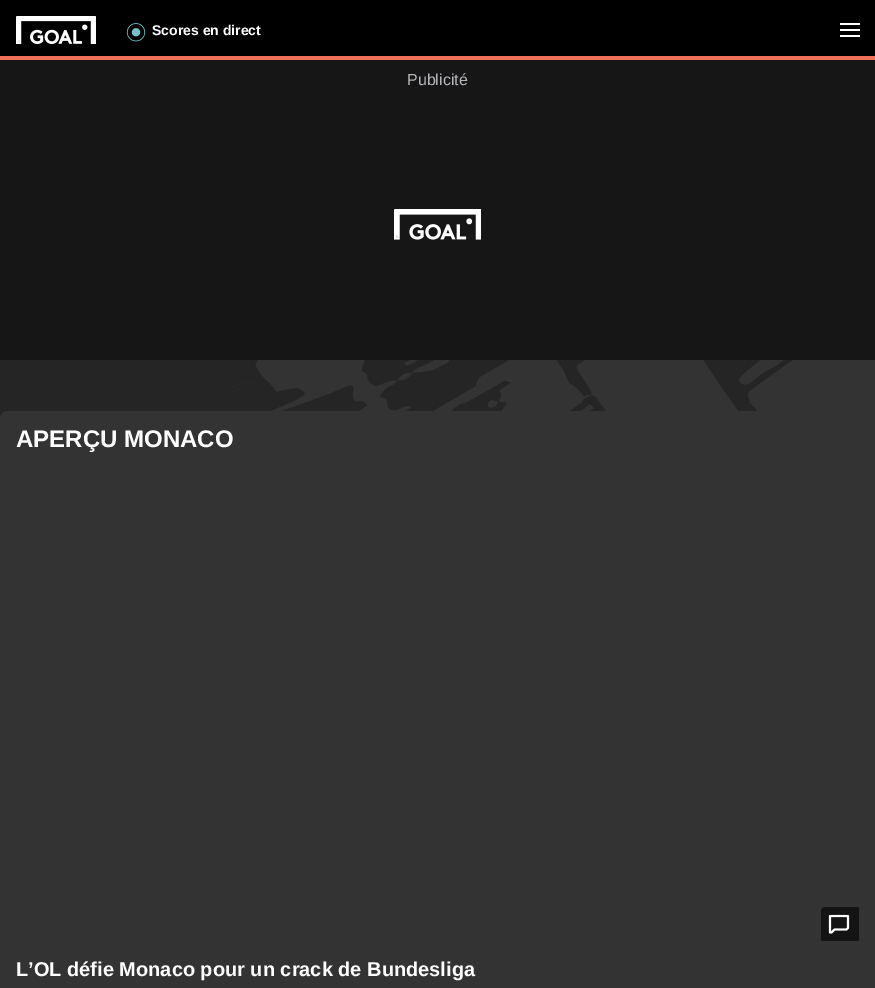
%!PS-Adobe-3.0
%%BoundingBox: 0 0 875 988
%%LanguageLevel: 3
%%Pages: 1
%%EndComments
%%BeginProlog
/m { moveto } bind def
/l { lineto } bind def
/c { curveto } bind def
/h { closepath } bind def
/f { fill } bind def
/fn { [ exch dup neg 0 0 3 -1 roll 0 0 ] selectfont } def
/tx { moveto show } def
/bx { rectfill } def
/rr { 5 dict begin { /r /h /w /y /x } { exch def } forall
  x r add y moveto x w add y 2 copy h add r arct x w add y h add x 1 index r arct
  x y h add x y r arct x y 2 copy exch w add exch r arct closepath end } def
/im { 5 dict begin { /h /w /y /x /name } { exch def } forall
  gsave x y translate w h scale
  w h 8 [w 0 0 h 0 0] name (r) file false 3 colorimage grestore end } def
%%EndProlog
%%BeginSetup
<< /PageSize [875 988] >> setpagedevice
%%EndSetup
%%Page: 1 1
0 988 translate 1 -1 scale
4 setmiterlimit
0.2 setgray
0 0 875 988 bx
0 setgray
0 0 875 56 bx
0.941 0.439 0.353 setrgbcolor
0 56 875 4 bx
(image0.raw) 16 16 80 28 im
(image1.raw) 126 23 20 19 im
/LiberationSans-Bold 14 fn
1 setgray
(Scores en direct) 152 35 tx
840 23 20 2 bx
840 29 20 2 bx
840 35 20 2 bx
0.086 0.086 0.09 setrgbcolor
0 60 875 300 bx
/LiberationSans-Regular 16 fn
0.71 0.714 0.729 setrgbcolor
(Publicité) 407 85 tx
(image2.raw) 394 209 87 31 im
(image3.raw) 0 360 793 59 im
0.2 setgray
0 411 875 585 8 rr f
/LiberationSans-Bold 24 fn
1 setgray
(APERÇU MONACO) 16 447 tx
0.078 setgray
825 907 m 859 907 l 859 941 l 821 941 l 821 911 l 821 909 823 907 825 907 c h f
(image4.raw) 828 914 22 20 im
/LiberationSans-Bold 20 fn
1 setgray
(L’OL défie Monaco pour un crack de Bundesliga) 16 976 tx
showpage
%%EOF
